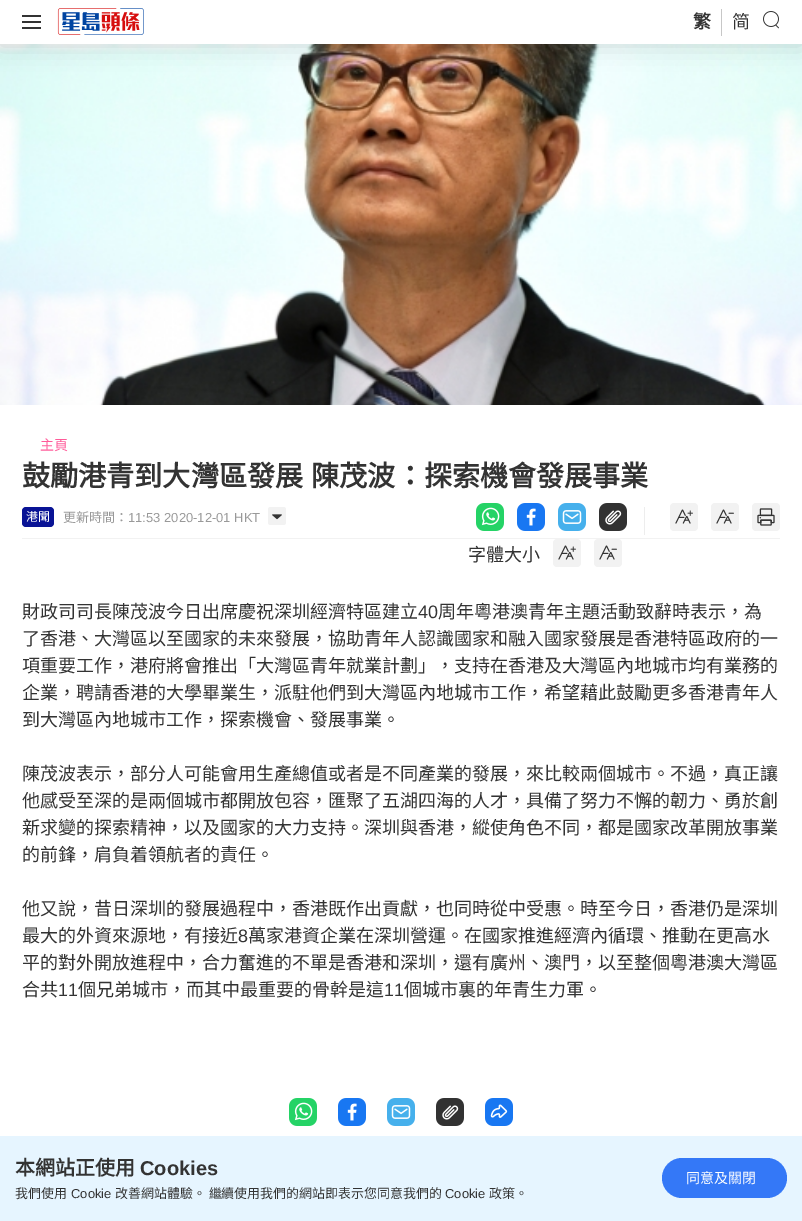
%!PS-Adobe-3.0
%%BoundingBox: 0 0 802 1221
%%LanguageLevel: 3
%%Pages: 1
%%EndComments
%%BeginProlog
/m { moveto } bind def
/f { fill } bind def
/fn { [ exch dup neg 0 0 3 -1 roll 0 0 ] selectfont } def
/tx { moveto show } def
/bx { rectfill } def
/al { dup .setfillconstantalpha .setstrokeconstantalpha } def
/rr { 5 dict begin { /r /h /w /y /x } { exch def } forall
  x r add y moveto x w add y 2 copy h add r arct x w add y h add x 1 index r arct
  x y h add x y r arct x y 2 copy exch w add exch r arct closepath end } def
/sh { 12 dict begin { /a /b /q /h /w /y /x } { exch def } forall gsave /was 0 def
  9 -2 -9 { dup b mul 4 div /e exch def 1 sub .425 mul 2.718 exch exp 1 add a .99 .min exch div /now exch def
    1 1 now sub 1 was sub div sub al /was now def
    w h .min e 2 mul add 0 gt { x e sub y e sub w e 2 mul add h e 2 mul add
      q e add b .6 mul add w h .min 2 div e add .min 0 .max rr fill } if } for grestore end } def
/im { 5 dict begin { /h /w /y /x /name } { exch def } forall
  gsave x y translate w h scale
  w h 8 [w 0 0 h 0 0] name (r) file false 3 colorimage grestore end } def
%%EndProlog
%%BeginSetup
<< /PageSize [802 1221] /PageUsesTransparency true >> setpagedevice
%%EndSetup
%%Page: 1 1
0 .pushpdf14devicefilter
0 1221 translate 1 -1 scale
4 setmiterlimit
1 setgray
0 0 802 1221 bx
(image2.raw) 0 44 802 361 im
0 setgray
0 1 802 44 0 12 0.15 sh
1 setgray
0 0 802 44 bx
0.2 setgray
22 15 19 2 bx
22 21 19 2 bx
22 27 19 2 bx
(image0.raw) 57 8 87 27 im
0.78 setgray
721 9 1 27 bx
/NotoSansCJKHK-Bold 18 fn
0.2 setgray
(繁) 693 28 tx
/NotoSansCJKHK-Regular 18 fn
(简) 732 28 tx
(image1.raw) 763 11 16 18 im
/NotoSansCJKHK-Regular 14 fn
1 0.353 0.6 setrgbcolor
(主頁) 40 450 tx
/NotoSansCJKHK-Bold 28.1 fn
0.2 setgray
22 486 m 2 0 32 (鼓勵港青到大灣區發展 陳茂波：探索機會發展事業) widthshow
0.949 setgray
22 538 758 1 bx
0.035 0.075 0.584 setrgbcolor
22 507 32 20 4 rr f
/NotoSansCJKHK-Regular 12 fn
1 setgray
(港聞) 26 521 tx
/NotoSansCJKHK-Regular 13 fn
0.6 setgray
(更新時間：) 63 522 tx
/LiberationSans-Regular 13 fn
(11:53 2020-12-01 HKT) 128 522 tx
(image3.raw) 268 507 18 18 im
(image4.raw) 476 503 28 28 im
(image5.raw) 517 503 28 28 im
(image6.raw) 558 503 28 28 im
(image7.raw) 599 503 28 28 im
0.929 setgray
644 507 1 28 bx
0.949 setgray
670 503 28 28 4 rr f
(image8.raw) 675 509 18 15 im
711 503 28 28 4 rr f
(image9.raw) 716 509 18 15 im
752 503 28 28 4 rr f
(image10.raw) 757 508 18 18 im
/NotoSansCJKHK-Regular 18 fn
0.2 setgray
(字體大小) 468 561 tx
0.949 setgray
553 539 28 28 4 rr f
(image8.raw) 558 545 18 15 im
594 539 28 28 4 rr f
(image9.raw) 599 545 18 15 im
0.2 setgray
(財政司司長陳茂波今日出席慶祝深圳經濟特區建立) 22 618 tx
/LiberationSans-Regular 18 fn
(40) 418 618 tx
/NotoSansCJKHK-Regular 18 fn
(周年粵港澳青年主題活動致辭時表示，為) 438 618 tx
(了香港、大灣區以至國家的未來發展，協助青年人認識國家和融入國家發展是香港特區政府的一) 22 645 tx
(項重要工作，港府將會推出「大灣區青年就業計劃」，支持在香港及大灣區內地城市均有業務的) 22 672 tx
(企業，聘請香港的大學畢業生，派駐他們到大灣區內地城市工作，希望藉此鼓勵更多香港青年人) 22 699 tx
(到大灣區內地城市工作，探索機會、發展事業。) 22 726 tx
(陳茂波表示，部分人可能會用生產總值或者是不同產業的發展，來比較兩個城市。不過，真正讓) 22 780 tx
(他感受至深的是兩個城市都開放包容，匯聚了五湖四海的人才，具備了努力不懈的韌力、勇於創) 22 807 tx
(新求變的探索精神，以及國家的大力支持。深圳與香港，縱使角色不同，都是國家改革開放事業) 22 834 tx
(的前鋒，肩負着領航者的責任。) 22 861 tx
(他又說，昔日深圳的發展過程中，香港既作出貢獻，也同時從中受惠。時至今日，香港仍是深圳) 22 915 tx
(最大的外資來源地，有接近) 22 942 tx
/LiberationSans-Regular 18 fn
(8) 238 942 tx
/NotoSansCJKHK-Regular 18 fn
(萬家港資企業在深圳營運。在國家推進經濟內循環、推動在更高水) 248 942 tx
(平的對外開放進程中，合力奮進的不單是香港和深圳，還有廣州、澳門，以至整個粵港澳大灣區) 22 969 tx
(合共) 22 996 tx
/LiberationSans-Regular 18 fn
(11) 58 996 tx
/NotoSansCJKHK-Regular 18 fn
(個兄弟城市，而其中最重要的骨幹是這) 78 996 tx
/LiberationSans-Regular 18 fn
(11) 384 996 tx
/NotoSansCJKHK-Regular 18 fn
(個城市裏的年青生力軍。) 404 996 tx
(image4.raw) 289 1098 28 28 im
(image5.raw) 338 1098 28 28 im
(image6.raw) 387 1098 28 28 im
(image7.raw) 436 1098 28 28 im
(image11.raw) 485 1098 28 28 im
0.902 0.961 1 setrgbcolor
0 1136 802 85 bx
/NotoSansCJKHK-Bold 20 fn
0.2 setgray
(本網站正使用) 15 1175 tx
/LiberationSans-Bold 20 fn
(Cookies) 140 1175 tx
/NotoSansCJKHK-Regular 12.95 fn
(我們使用) 15 1198 tx
/LiberationSans-Regular 12.95 fn
(Cookie) 71 1198 tx
/NotoSansCJKHK-Regular 12.95 fn
(改善網站體驗。 繼續使用我們的網站即表示您同意我們的) 115 1198 tx
/LiberationSans-Regular 12.95 fn
(Cookie) 445 1198 tx
/NotoSansCJKHK-Regular 12.95 fn
(政策。) 489 1198 tx
0.204 0.471 0.969 setrgbcolor
662 1158 125 40 20 rr f
/NotoSansCJKHK-Regular 14 fn
1 setgray
(同意及關閉) 686 1183 tx
.poppdf14devicefilter showpage
%%EOF
